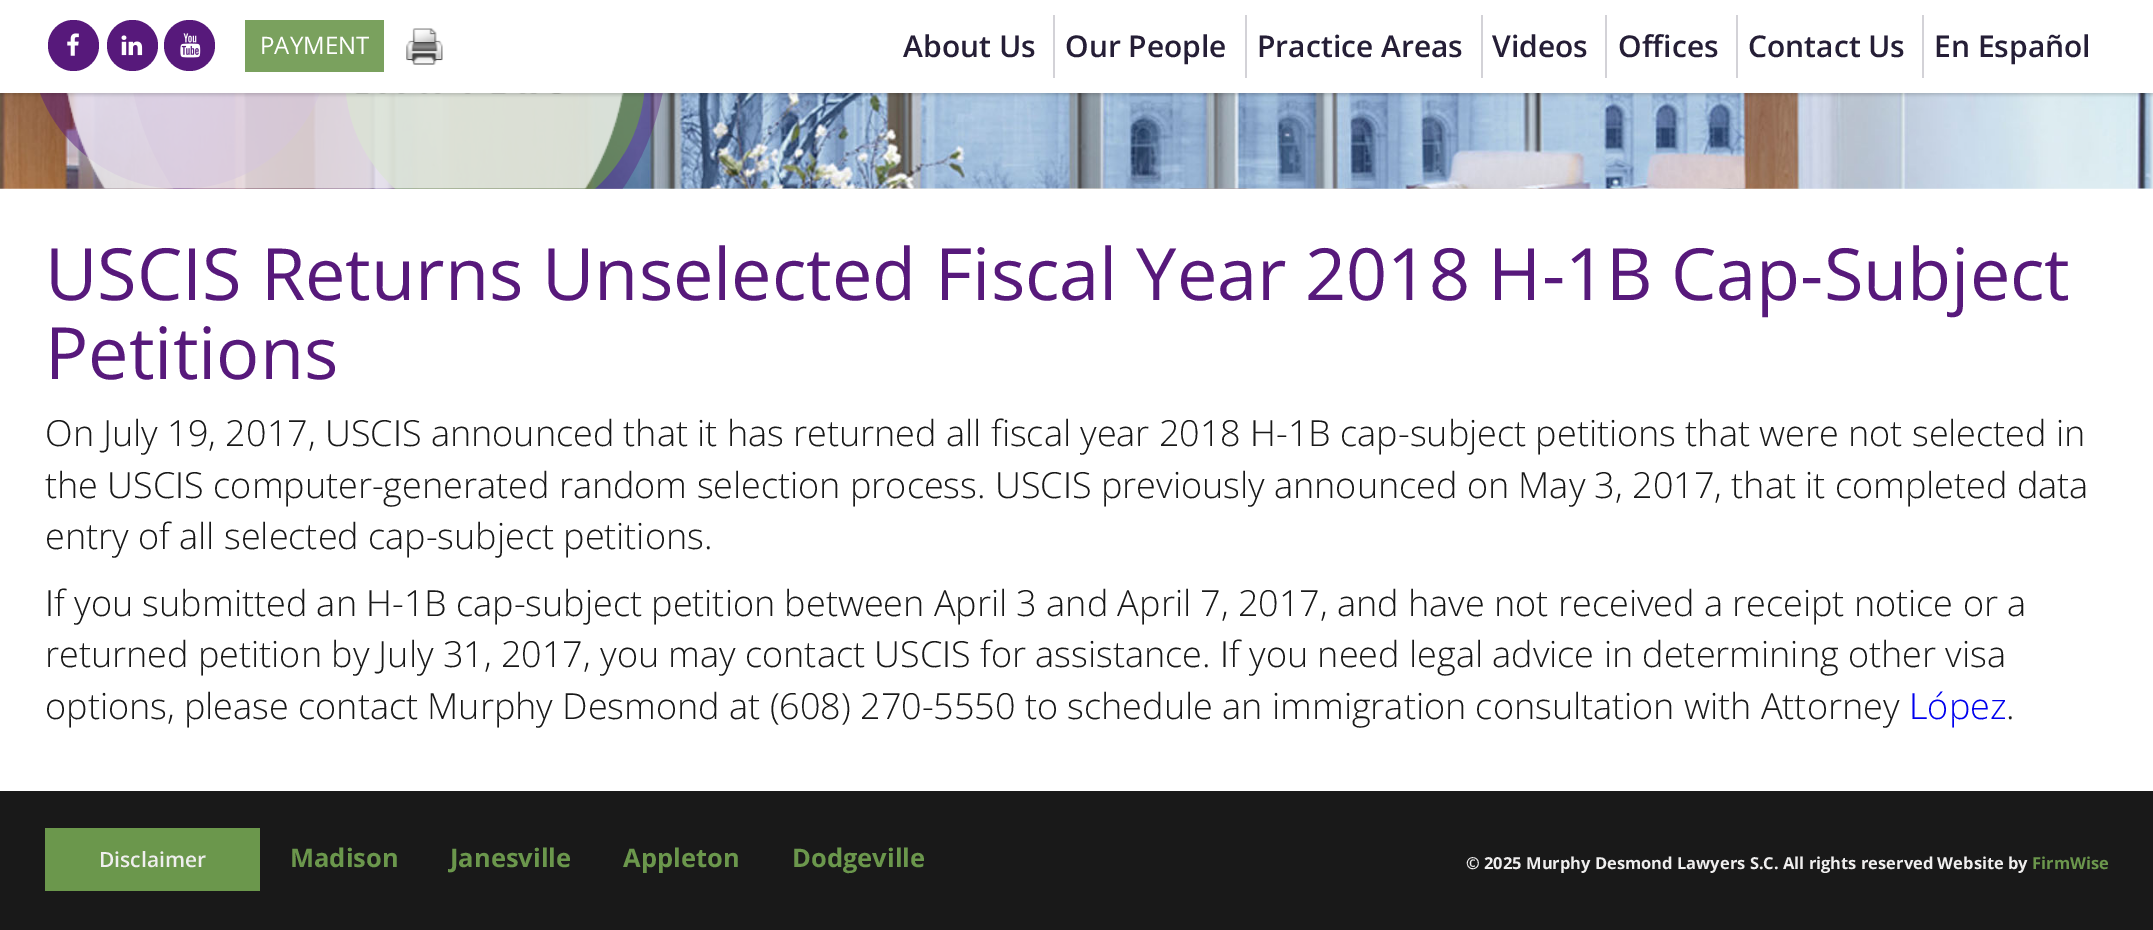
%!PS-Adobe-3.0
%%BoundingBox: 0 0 2153 930
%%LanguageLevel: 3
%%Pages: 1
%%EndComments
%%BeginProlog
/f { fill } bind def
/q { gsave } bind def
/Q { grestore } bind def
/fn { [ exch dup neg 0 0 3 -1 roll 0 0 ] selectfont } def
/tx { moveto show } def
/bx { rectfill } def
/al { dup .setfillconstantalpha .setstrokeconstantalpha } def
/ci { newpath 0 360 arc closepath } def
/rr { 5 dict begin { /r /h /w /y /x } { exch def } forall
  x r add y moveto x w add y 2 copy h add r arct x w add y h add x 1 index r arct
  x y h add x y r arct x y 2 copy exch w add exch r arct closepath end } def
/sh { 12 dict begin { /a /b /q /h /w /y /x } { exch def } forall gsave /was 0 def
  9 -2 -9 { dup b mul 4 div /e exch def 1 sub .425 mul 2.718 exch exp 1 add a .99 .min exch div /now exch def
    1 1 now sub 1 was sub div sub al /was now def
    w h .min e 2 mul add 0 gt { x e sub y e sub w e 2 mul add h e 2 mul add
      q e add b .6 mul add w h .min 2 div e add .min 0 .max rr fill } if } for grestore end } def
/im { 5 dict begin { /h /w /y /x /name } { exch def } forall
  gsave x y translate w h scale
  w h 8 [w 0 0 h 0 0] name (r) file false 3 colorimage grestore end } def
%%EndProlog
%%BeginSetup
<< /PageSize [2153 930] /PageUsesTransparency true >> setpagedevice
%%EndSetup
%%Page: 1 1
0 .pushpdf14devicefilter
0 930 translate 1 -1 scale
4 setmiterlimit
1 setgray
0 0 2153 930 bx
(image4.raw) 0 188 2153 1 im
(image6.raw) 0 93 2153 96 im
/OpenSans-Regular 72 fn
0.341 0.098 0.482 setrgbcolor
(USCIS Returns Unselected Fiscal Year 2018 H-1B Cap-Subject) 45 300 tx
q
0 0 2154 189 rectclip
0.4 al
398 39 270 ci f
Q
0.5 al
180 39 150 ci f
q
0 0 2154 189 rectclip
0.7 al
0.42 0.592 0.298 setrgbcolor
495 77 150 ci f
Q
1 al
(image5.raw) 66 93 558 96 im
0 setgray
0 2 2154 93 0 1.5 0.15 sh
1 setgray
0 0 2153 93 bx
0.341 0.098 0.482 setrgbcolor
73.5 45.5 25.5 ci f
(image0.raw) 67 33 12 23 im
132.5 45.5 25.5 ci f
(image1.raw) 121 35 22 21 im
189.5 45.5 25.5 ci f
(image2.raw) 180 33 21 25 im
0.478 0.631 0.369 setrgbcolor
245 20 139 52 bx
/OpenSans-Regular 24 fn
1 setgray
(PAYMENT) 260 54 tx
(image3.raw) 406 28 37 37 im
/OpenSans-SemiBold 30 fn
0.145 0.118 0.212 setrgbcolor
(About Us) 903 57 tx
0.827 0.824 0.843 setrgbcolor
1053 15 2 63 bx
0.145 0.118 0.212 setrgbcolor
(Our People) 1065 57 tx
0.827 0.824 0.843 setrgbcolor
1245 15 2 63 bx
0.145 0.118 0.212 setrgbcolor
(Practice Areas) 1257 57 tx
0.827 0.824 0.843 setrgbcolor
1481 15 2 63 bx
0.145 0.118 0.212 setrgbcolor
(Videos) 1492 57 tx
0.827 0.824 0.843 setrgbcolor
1605 15 2 63 bx
0.145 0.118 0.212 setrgbcolor
(Offices) 1618 57 tx
0.827 0.824 0.843 setrgbcolor
1736 15 2 63 bx
0.145 0.118 0.212 setrgbcolor
(Contact Us) 1748 57 tx
0.827 0.824 0.843 setrgbcolor
1922 15 2 63 bx
0.145 0.118 0.212 setrgbcolor
(En Español) 1934 57 tx
/OpenSans-Regular 72 fn
0.341 0.098 0.482 setrgbcolor
(Petitions) 45 379 tx
/OpenSans-Light 36 fn
0.098 setgray
(On July 19, 2017, USCIS announced that it has returned all fiscal year 2018 H-1B cap-subject petitions that were not selected in) 45 446 tx
(the USCIS computer-generated random selection process. USCIS previously announced on May 3, 2017, that it completed data) 45 498 tx
(entry of all selected cap-subject petitions.) 45 549 tx
(If you submitted an H-1B cap-subject petition between April 3 and April 7, 2017, and have not received a receipt notice or a) 45 616 tx
(returned petition by July 31, 2017, you may contact USCIS for assistance. If you need legal advice in determining other visa) 45 667 tx
(options, please contact Murphy Desmond at \(608\) 270-5550 to schedule an immigration consultation with Attorney) 45 719 tx
0 0 0.933 setrgbcolor
(López) 1909 719 tx
0.098 setgray
(.) 2006 719 tx
0 791 2153 139 bx
0.42 0.592 0.298 setrgbcolor
45 828 215 63 bx
/OpenSans-SemiBold 21 fn
0.937 0.933 0.933 setrgbcolor
(Disclaimer) 99 867 tx
/OpenSans-Bold 25.5 fn
0.42 0.592 0.298 setrgbcolor
(Madison) 290 867 tx
(Janesville) 450 867 tx
(Appleton) 623 867 tx
(Dodgeville) 792 867 tx
/OpenSans-Bold 16.5 fn
0.937 0.933 0.933 setrgbcolor
(© 2025 Murphy Desmond Lawyers S.C. All rights reserved Website by) 1466 869 tx
0.42 0.592 0.298 setrgbcolor
(FirmWise) 2032 869 tx
.poppdf14devicefilter showpage
%%EOF
